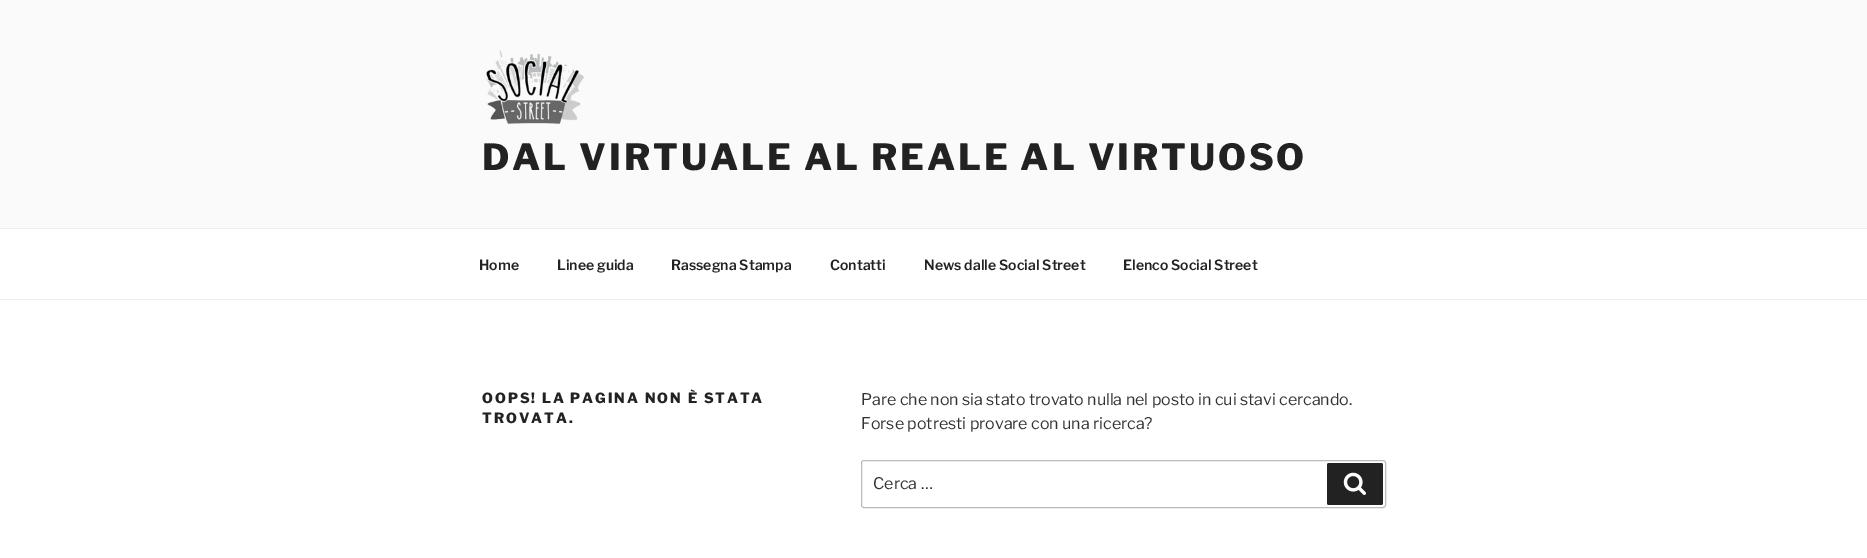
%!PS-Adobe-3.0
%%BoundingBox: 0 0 1867 558
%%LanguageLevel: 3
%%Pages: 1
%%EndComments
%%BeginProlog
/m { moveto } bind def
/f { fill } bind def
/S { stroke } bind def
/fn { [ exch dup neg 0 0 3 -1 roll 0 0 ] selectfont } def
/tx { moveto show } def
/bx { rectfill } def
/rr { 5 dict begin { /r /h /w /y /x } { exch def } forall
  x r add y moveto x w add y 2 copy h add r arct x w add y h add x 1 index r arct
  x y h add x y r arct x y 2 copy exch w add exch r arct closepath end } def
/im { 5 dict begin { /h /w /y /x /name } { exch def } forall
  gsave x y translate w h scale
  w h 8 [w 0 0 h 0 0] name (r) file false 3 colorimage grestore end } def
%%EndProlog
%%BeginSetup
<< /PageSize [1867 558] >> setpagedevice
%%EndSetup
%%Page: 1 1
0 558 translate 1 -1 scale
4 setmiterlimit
1 setgray
0 0 1867 558 bx
0.98 setgray
0 0 1867 228 bx
(image0.raw) 486 50 98 74 im
/LibreFranklin-ExtraBold 36 fn
0.133 setgray
482 170 m 2.9 0 (DAL VIRTUALE AL REALE AL VIRTUOSO) ashow
0.933 setgray
0 228 1867 1 bx
0 299 1867 1 bx
/LibreFranklin-SemiBold 14 fn
0.133 setgray
(Home) 479 270 tx
(Linee guida) 557 270 tx
(Rassegna Stampa) 671 270 tx
(Contatti) 830 270 tx
(News dalle Social Street) 924 270 tx
(Elenco Social Street) 1123 270 tx
/LibreFranklin-ExtraBold 14 fn
482 403 m 1.95 0 (OOPS! LA PAGINA NON È STATA) ashow
482 423 m 1.95 0 (TROVATA.) ashow
/LibreFranklin-Regular 16 fn
0.2 setgray
(Pare che non sia stato trovato nulla nel posto in cui stavi cercando.) 861 405 tx
(Forse potresti provare con una ricerca?) 861 429 tx
0.733 setgray
861.5 460.5 524 47 2.5 rr S
0.2 setgray
(Cerca …) 873 489 tx
0.133 setgray
1327 463 56 42 2 rr f
(image1.raw) 1343 472 23 23 im
showpage
%%EOF
